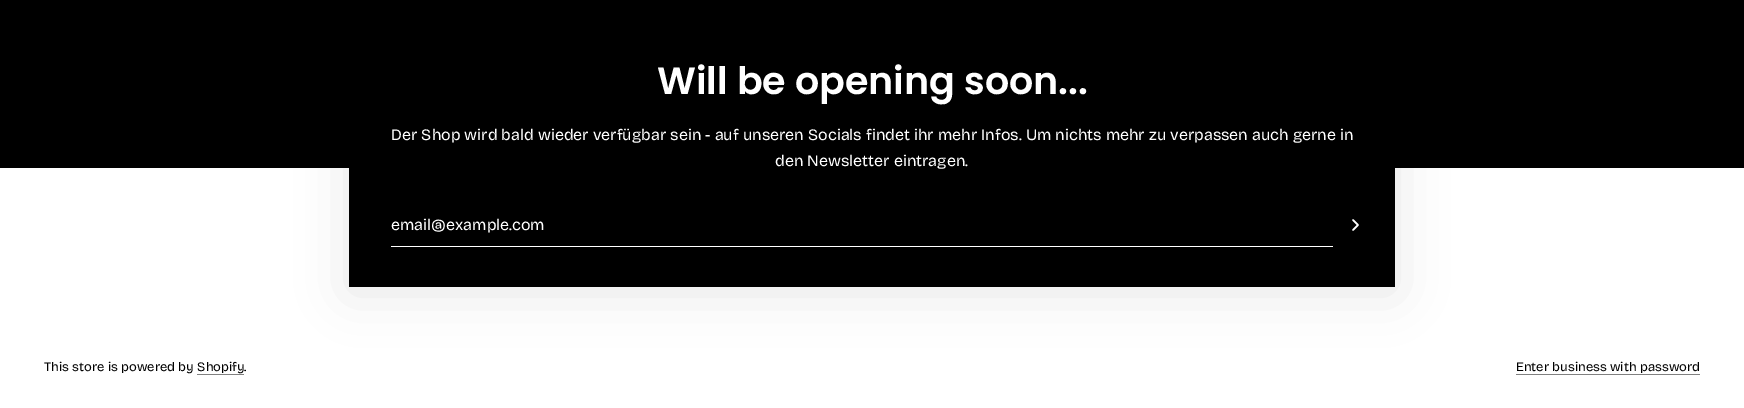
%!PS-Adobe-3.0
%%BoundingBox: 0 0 1744 408
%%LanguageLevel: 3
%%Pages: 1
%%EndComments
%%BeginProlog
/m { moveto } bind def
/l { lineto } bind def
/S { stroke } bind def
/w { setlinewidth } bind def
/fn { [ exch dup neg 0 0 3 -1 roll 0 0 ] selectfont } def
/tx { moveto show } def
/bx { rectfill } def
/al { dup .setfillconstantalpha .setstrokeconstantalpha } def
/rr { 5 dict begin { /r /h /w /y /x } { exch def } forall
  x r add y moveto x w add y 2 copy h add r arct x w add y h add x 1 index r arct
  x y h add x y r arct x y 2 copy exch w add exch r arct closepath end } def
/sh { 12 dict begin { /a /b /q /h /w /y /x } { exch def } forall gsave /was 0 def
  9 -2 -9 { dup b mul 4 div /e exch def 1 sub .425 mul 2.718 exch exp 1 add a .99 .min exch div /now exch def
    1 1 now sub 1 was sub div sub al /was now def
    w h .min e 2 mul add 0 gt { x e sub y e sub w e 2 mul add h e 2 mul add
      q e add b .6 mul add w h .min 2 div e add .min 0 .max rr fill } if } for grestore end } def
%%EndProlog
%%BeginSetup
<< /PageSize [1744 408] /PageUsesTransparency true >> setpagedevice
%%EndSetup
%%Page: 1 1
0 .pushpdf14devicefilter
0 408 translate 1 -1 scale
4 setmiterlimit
1 setgray
0 0 1744 408 bx
0 setgray
0 0 1744 168 bx
349 -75 1046 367 0 25 0.1 sh
349 168 1046 119 bx
/Poppins-SemiBold 38 fn
1 setgray
(Will be opening soon...) 657 94 tx
/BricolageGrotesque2-Regular 16 fn
(Der Shop wird bald wieder verfügbar sein - auf unseren Socials findet ihr mehr Infos. Um nichts mehr zu verpassen auch gerne in) 391 140 tx
(den Newsletter eintragen.) 775 166 tx
391 246 942 1 bx
(email@example.com) 391 230 tx
1.5 w
1 setlinecap
1 setlinejoin
1353 220 m 1358 225 l 1353 230 l S
/BricolageGrotesque-Regular 13 fn
0 setgray
(This store is powered by Shopify) 44 371 tx
(.) 244 371 tx
0.502 setgray
197 374 47 1 bx
0 setgray
(Enter business with password) 1516 371 tx
0.502 setgray
1516 374 184 1 bx
.poppdf14devicefilter showpage
%%EOF
